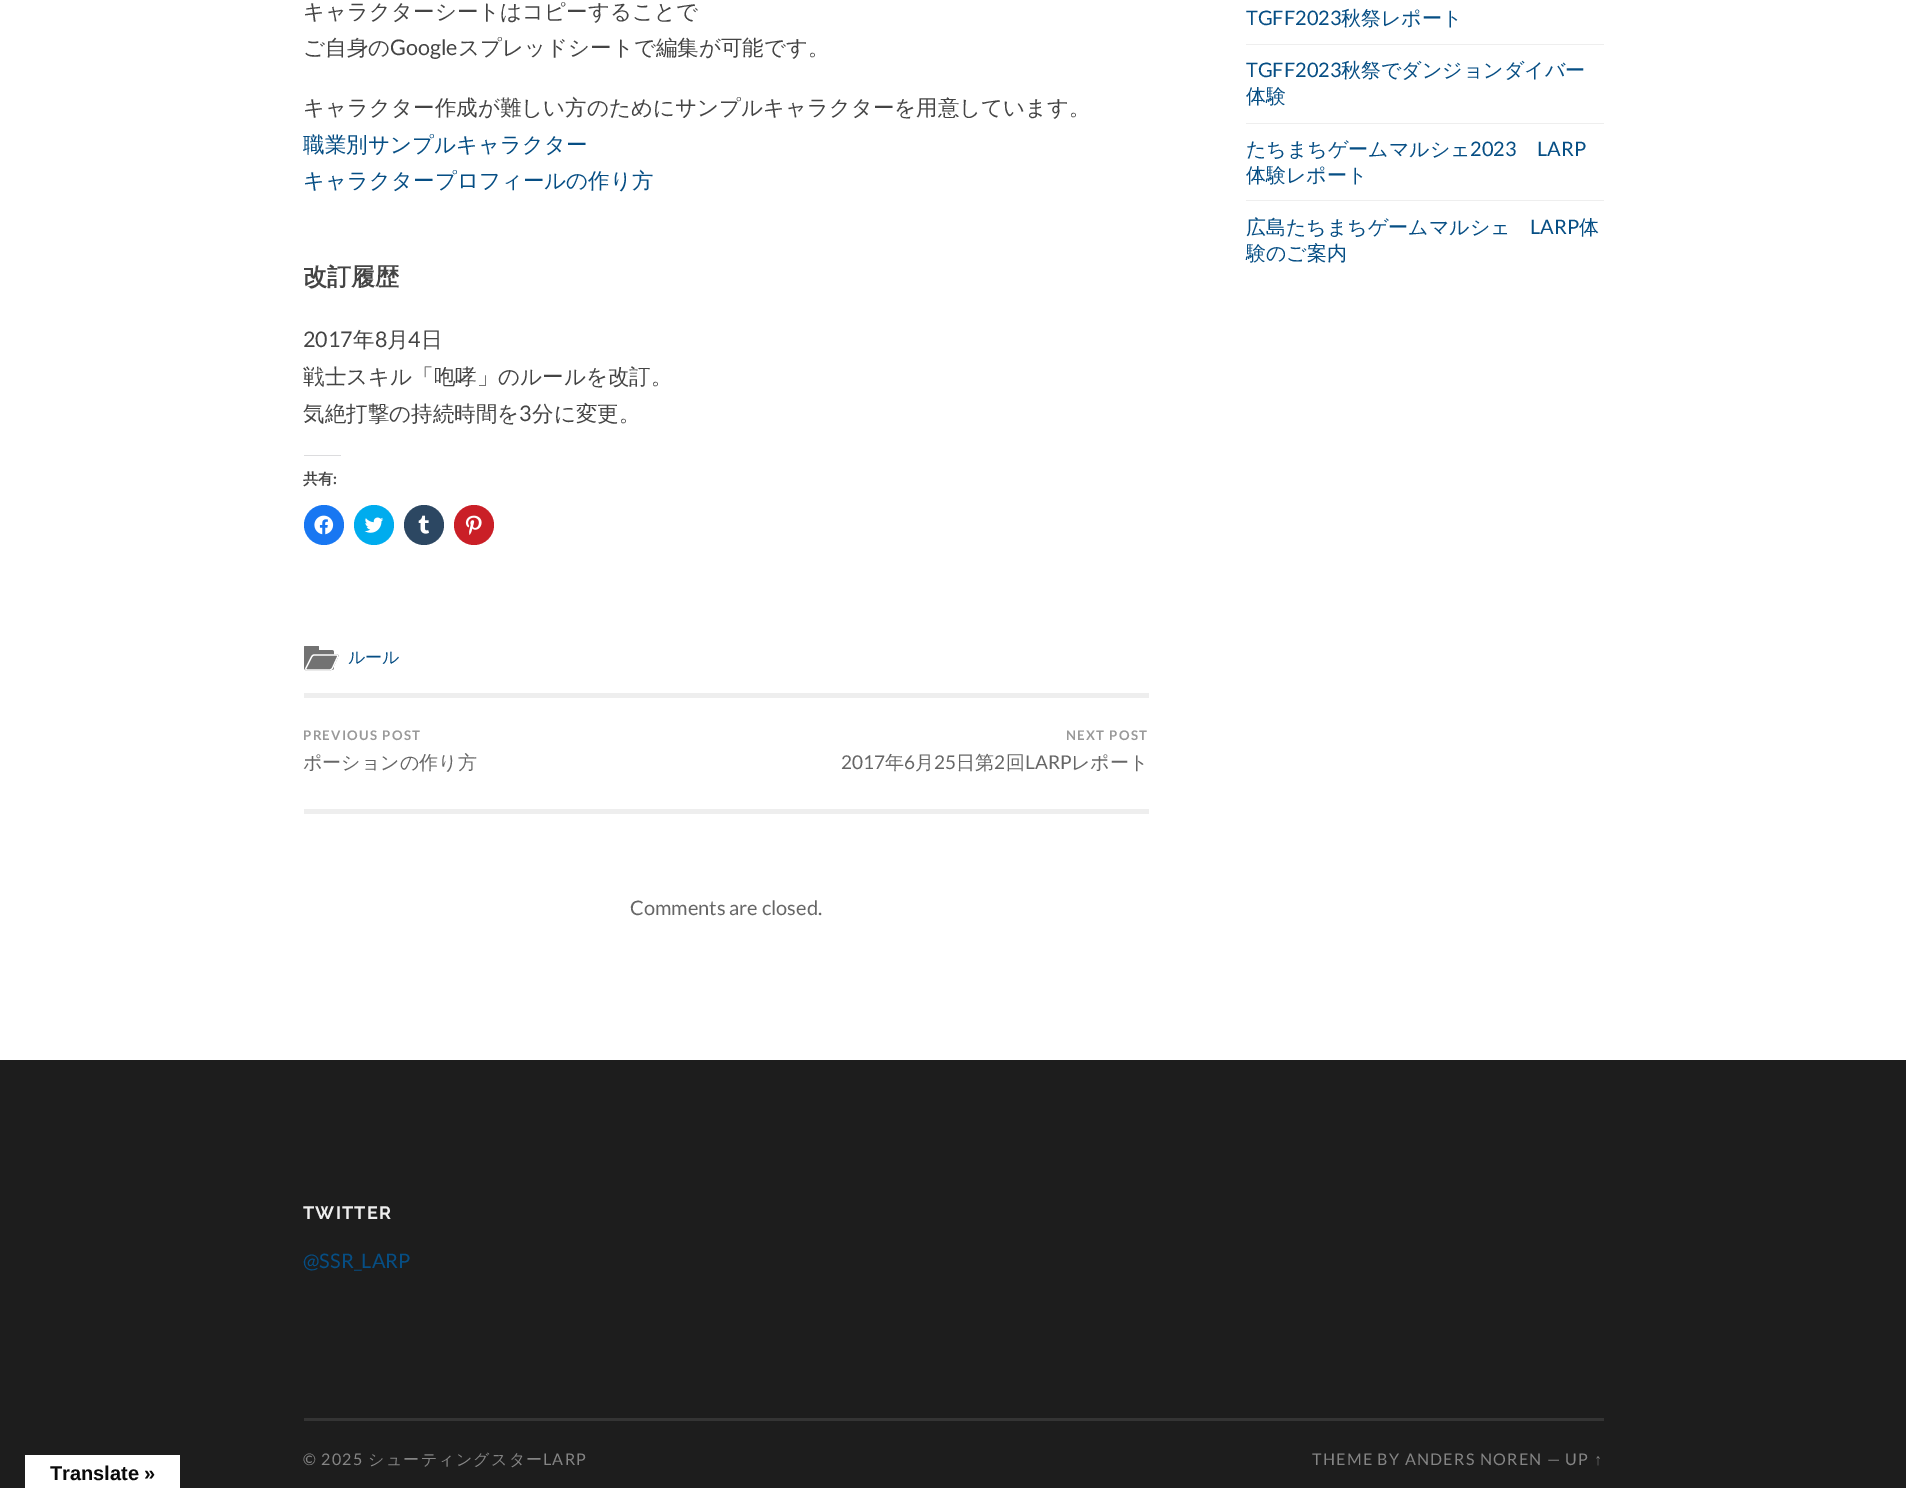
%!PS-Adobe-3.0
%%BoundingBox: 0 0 1906 1488
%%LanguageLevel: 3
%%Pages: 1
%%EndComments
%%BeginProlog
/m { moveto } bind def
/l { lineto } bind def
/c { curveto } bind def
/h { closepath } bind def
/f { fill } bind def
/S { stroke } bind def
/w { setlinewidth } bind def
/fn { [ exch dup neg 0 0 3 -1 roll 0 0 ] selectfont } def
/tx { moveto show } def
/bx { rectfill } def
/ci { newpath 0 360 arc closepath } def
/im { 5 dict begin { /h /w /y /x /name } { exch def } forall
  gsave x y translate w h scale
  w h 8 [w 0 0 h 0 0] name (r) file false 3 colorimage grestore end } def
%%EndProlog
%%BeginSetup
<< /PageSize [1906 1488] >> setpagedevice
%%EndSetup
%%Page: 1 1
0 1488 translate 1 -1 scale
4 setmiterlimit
1 setgray
0 0 1906 1488 bx
/WenQuanYiZenHei-Medium 21.5 fn
0.267 setgray
(キャラクターシートはコピーすることで) 303 19 tx
(ご自身の) 303 55 tx
/Lato-Regular 21.5 fn
(Google) 390 55 tx
/WenQuanYiZenHei-Medium 21.5 fn
(スプレッドシートで編集が可能です。) 458 55 tx
(キャラクター作成が難しい方のためにサンプルキャラクターを用意しています。) 303 115 tx
0.024 0.306 0.518 setrgbcolor
(職業別サンプルキャラクター) 303 152 tx
(キャラクタープロフィールの作り方) 303 188 tx
/WenQuanYiZenHei-Bold 24 fn
0.267 setgray
(改訂履歴) 303 285 tx
/Lato-Regular 21.5 fn
(2017) 303 347 tx
/WenQuanYiZenHei-Medium 21.5 fn
(年) 353 347 tx
/Lato-Regular 21.5 fn
(8) 375 347 tx
/WenQuanYiZenHei-Medium 21.5 fn
(月) 387 347 tx
/Lato-Regular 21.5 fn
(4) 408 347 tx
/WenQuanYiZenHei-Medium 21.5 fn
(日) 421 347 tx
(戦士スキル「咆哮」のルールを改訂。) 303 384 tx
(気絶打撃の持続時間を) 303 421 tx
/Lato-Regular 21.5 fn
(3) 519 421 tx
/WenQuanYiZenHei-Medium 21.5 fn
(分に変更。) 532 421 tx
0.863 0.863 0.871 setrgbcolor
304 455 37 1 bx
/WenQuanYiZenHei-Bold 15 fn
0.267 setgray
(共有) 303 484 tx
/Lato-Bold 15 fn
(:) 333 484 tx
0.094 0.467 0.949 setrgbcolor
324 525 20 ci f
(image0.raw) 314 515 20 20 im
0 0.675 0.933 setrgbcolor
374 525 20 ci f
(image1.raw) 364 517 20 16 im
0.173 0.278 0.384 setrgbcolor
424 525 20 ci f
(image2.raw) 418 515 11 19 im
0.792 0.122 0.153 setrgbcolor
474 525 20 ci f
(image3.raw) 465 515 17 20 im
0.447 setgray
304 650 m 331.5 650 l 333 650 334 651 334 652.5 c 334 667.5 l 334 669 333 670 331.5 670 c 306.5 670 l 305 670 304 669 304 667.5 c h f
305 646 m 318 646 l 318.5 646 319 646.5 319 647 c 319 650 l 304 650 l 304 647 l 304 646.5 304.5 646 305 646 c h f
314.5 654.5 m 337 654.5 l 338.5 654.5 339 655.5 338 657 c 333 668 l 332.5 669.5 330.5 670.5 329.5 670.5 c 307 670.5 l 305.5 670.5 305 669.5 305.5 668 c 310.5 657 l 311.5 655.5 313 654.5 314.5 654.5 c h f
1 setgray
1.2 w
314 655 m 336.5 655 l 337.5 655 338 656 337.5 657 c 332.5 668 l 332 669 330.5 670 329.5 670 c 307 670 l 306 670 305.5 669 306 668 c 311.5 657 l 312 656 313 655 314 655 c h S
/WenQuanYiZenHei-Medium 17 fn
0.024 0.306 0.518 setrgbcolor
(ルール) 348 663 tx
0.933 setgray
304 693 845 5 bx
304 809 845 5 bx
/Lato-Bold 13.25 fn
0.6 setgray
303 740 m 1.25 0 (PREVIOUS POST) ashow
/WenQuanYiZenHei-Medium 19 fn
0.4 setgray
(ポーションの作り方) 303 769 tx
/Lato-Bold 13.25 fn
0.6 setgray
1066 740 m 1.25 0 (NEXT POST) ashow
/Lato-Regular 19 fn
0.4 setgray
(2017) 841 769 tx
/WenQuanYiZenHei-Medium 19 fn
(年) 885 769 tx
/Lato-Regular 19 fn
(6) 904 769 tx
/WenQuanYiZenHei-Medium 19 fn
(月) 915 769 tx
/Lato-Regular 19 fn
(25) 934 769 tx
/WenQuanYiZenHei-Medium 19 fn
(日第) 956 769 tx
/Lato-Regular 19 fn
(2) 994 769 tx
/WenQuanYiZenHei-Medium 19 fn
(回) 1006 769 tx
/Lato-Regular 19 fn
(LARP) 1025 769 tx
/WenQuanYiZenHei-Medium 19 fn
(レポート) 1071 769 tx
/Lato-Regular 20 fn
(Comments are closed.) 630 915 tx
0.024 0.306 0.518 setrgbcolor
(TGFF2023) 1246 25 tx
/WenQuanYiZenHei-Medium 20 fn
(秋祭レポート) 1341 25 tx
0.933 setgray
1246 44 358 1 bx
/Lato-Regular 20 fn
0.024 0.306 0.518 setrgbcolor
(TGFF2023) 1246 77 tx
/WenQuanYiZenHei-Medium 20 fn
(秋祭でダンジョンダイバー) 1341 77 tx
(体験) 1246 103 tx
0.933 setgray
1246 123 358 1 bx
0.024 0.306 0.518 setrgbcolor
(たちまちゲームマルシェ) 1246 156 tx
/Lato-Regular 20 fn
(2023) 1470 156 tx
(LARP) 1537 156 tx
/WenQuanYiZenHei-Medium 20 fn
(体験レポート) 1246 182 tx
0.933 setgray
1246 200 358 1 bx
0.024 0.306 0.518 setrgbcolor
(広島たちまちゲームマルシェ) 1246 234 tx
/Lato-Regular 20 fn
(LARP) 1530 234 tx
/WenQuanYiZenHei-Medium 20 fn
(体) 1579 234 tx
(験のご案内) 1246 260 tx
0.114 setgray
0 1060 1906 428 bx
/Raleway-Bold 18 fn
0.933 setgray
303 1219 m 1.25 0 (TWITTER) ashow
/Lato-Regular 20 fn
0.024 0.306 0.518 setrgbcolor
(@SSR_LARP) 303 1268 tx
0.204 setgray
304 1418 1300 3 bx
/Lato-Regular 16 fn
0.522 setgray
303 1465 m 1.25 0 (© 2025) ashow
/WenQuanYiZenHei-Medium 16 fn
368 1465 m 1.25 0 (シューティングスター) ashow
/Lato-Regular 16 fn
543 1465 m 1.25 0 (LARP) ashow
1312 1465 m 1.25 0 (THEME BY ANDERS NOREN — UP) ashow
/LiberationSans-Regular 16 fn
1594 1465 m 1.25 0 (↑) ashow
1 setgray
25 1455 155 33 bx
/LiberationSans-Bold 20 fn
0.039 setgray
(Translate ») 50 1480 tx
showpage
%%EOF
